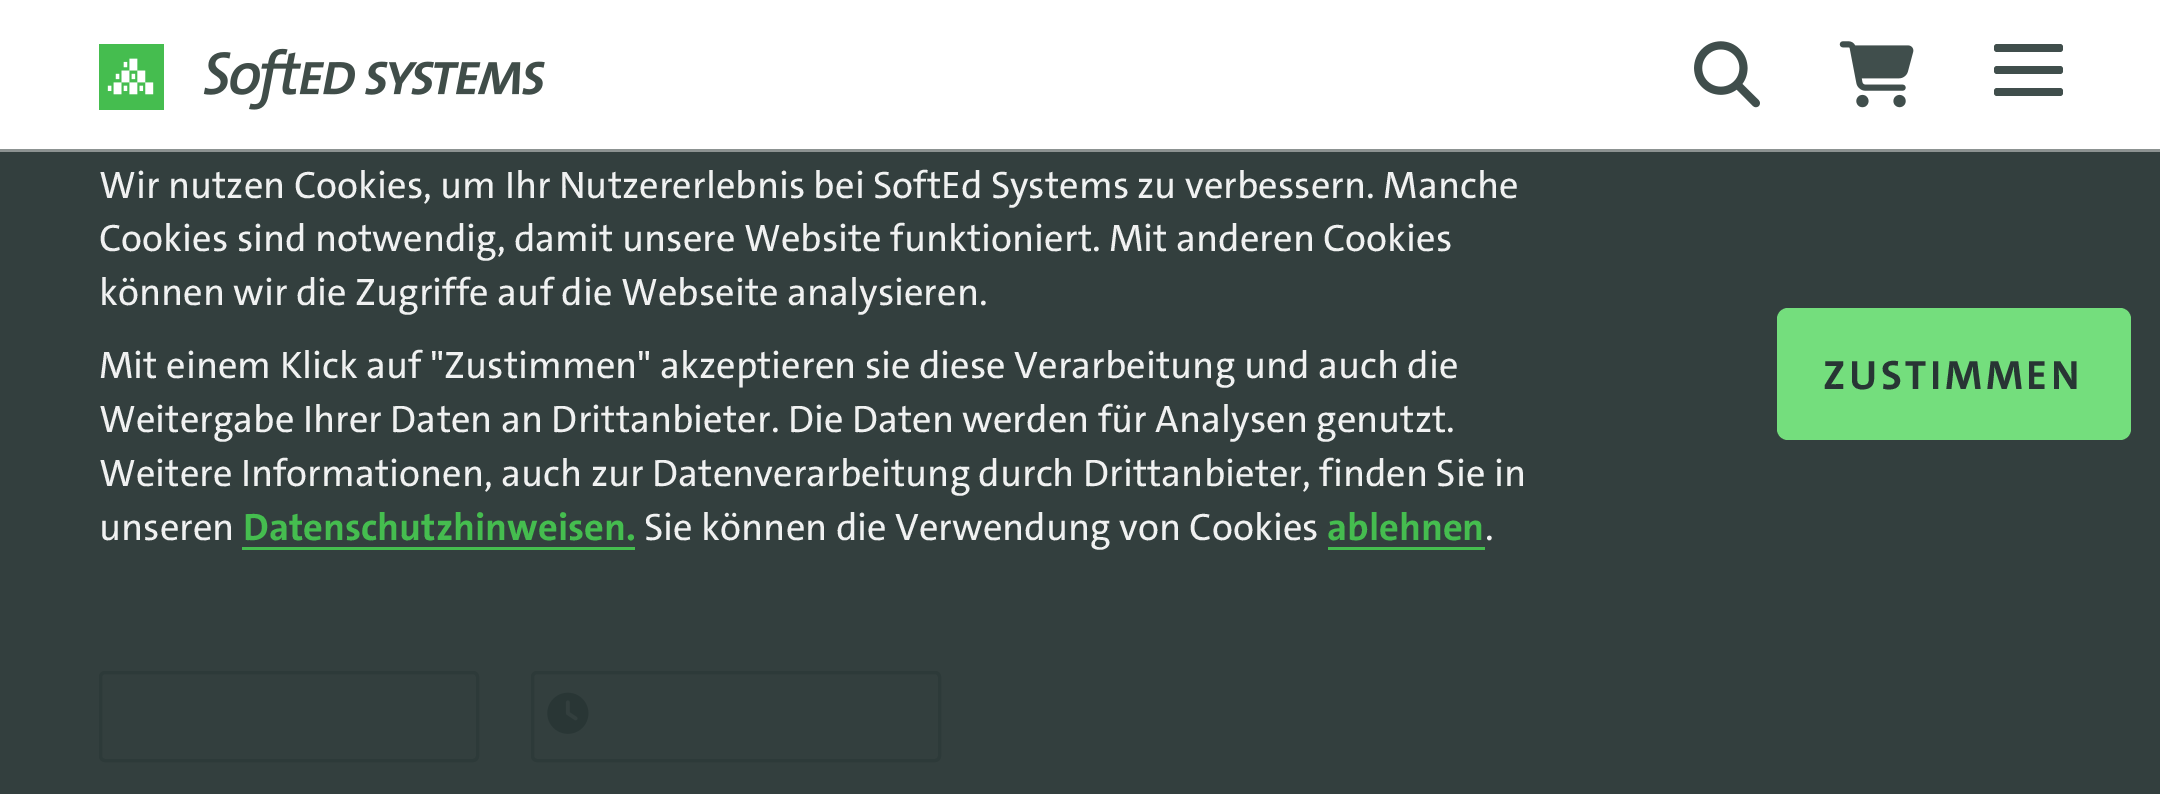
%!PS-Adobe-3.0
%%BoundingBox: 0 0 2160 794
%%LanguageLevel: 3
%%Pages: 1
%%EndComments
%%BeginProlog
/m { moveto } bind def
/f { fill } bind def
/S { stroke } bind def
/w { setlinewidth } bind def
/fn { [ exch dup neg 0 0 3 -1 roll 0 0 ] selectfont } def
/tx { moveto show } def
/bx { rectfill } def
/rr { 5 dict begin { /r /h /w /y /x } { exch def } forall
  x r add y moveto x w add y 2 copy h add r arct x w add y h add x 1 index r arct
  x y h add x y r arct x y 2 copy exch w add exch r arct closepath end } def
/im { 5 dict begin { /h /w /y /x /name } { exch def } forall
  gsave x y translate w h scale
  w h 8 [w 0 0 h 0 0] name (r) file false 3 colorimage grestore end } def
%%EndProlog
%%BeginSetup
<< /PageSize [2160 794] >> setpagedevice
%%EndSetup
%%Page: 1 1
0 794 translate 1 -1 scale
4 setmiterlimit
0.2 0.247 0.243 setrgbcolor
0 0 2160 794 bx
1 setgray
0 0 2160 149 bx
0.549 0.573 0.569 setrgbcolor
0 149 2160 3 bx
(image0.raw) 99 44 446 66 im
(image1.raw) 1694 41 66 67 im
(image2.raw) 1839 41 75 67 im
0.251 0.306 0.298 setrgbcolor
1994 66 69 8 3 rr f
1994 44 69 8 3 rr f
1994 88 69 8 3 rr f
/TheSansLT-Regular 38.5 fn
0.941 0.945 0.945 setrgbcolor
(Wir nutzen Cookies, um Ihr Nutzererlebnis bei SoftEd Systems zu verbessern. Manche) 99 198 tx
(Cookies sind notwendig, damit unsere Website funktioniert. Mit anderen Cookies) 99 251 tx
(können wir die Zugriffe auf die Webseite analysieren.) 99 305 tx
(Mit einem Klick auf "Zustimmen" akzeptieren sie diese Verarbeitung und auch die) 99 378 tx
(Weitergabe Ihrer Daten an Drittanbieter. Die Daten werden für Analysen genutzt.) 99 432 tx
(Weitere Informationen, auch zur Datenverarbeitung durch Drittanbieter, finden Sie in) 99 486 tx
(unseren) 99 540 tx
/TheSansLT-Bold 38.5 fn
0.271 0.741 0.31 setrgbcolor
(Datenschutzhinweisen.) 243 540 tx
242 547 393 3 bx
/TheSansLT-Regular 38.5 fn
0.941 0.945 0.945 setrgbcolor
(Sie können die Verwendung von Cookies) 644 540 tx
/TheSansLT-Bold 38.5 fn
0.271 0.741 0.31 setrgbcolor
(ablehnen) 1327 540 tx
1328 547 157 3 bx
/TheSansLT-Regular 38.5 fn
0.941 0.945 0.945 setrgbcolor
(.) 1485 540 tx
0.455 0.871 0.49 setrgbcolor
1777 308 354 132 11 rr f
/TheSansLT-Bold 41.25 fn
0.157 0.208 0.204 setrgbcolor
1823 389 m 3.75 0 (ZUSTIMMEN) ashow
0.176 0.227 0.224 setrgbcolor
3 w
100.5 672.5 377 88 4.5 rr S
532.5 672.5 407 88 4.5 rr S
(image3.raw) 547 692 42 42 im
showpage
%%EOF
